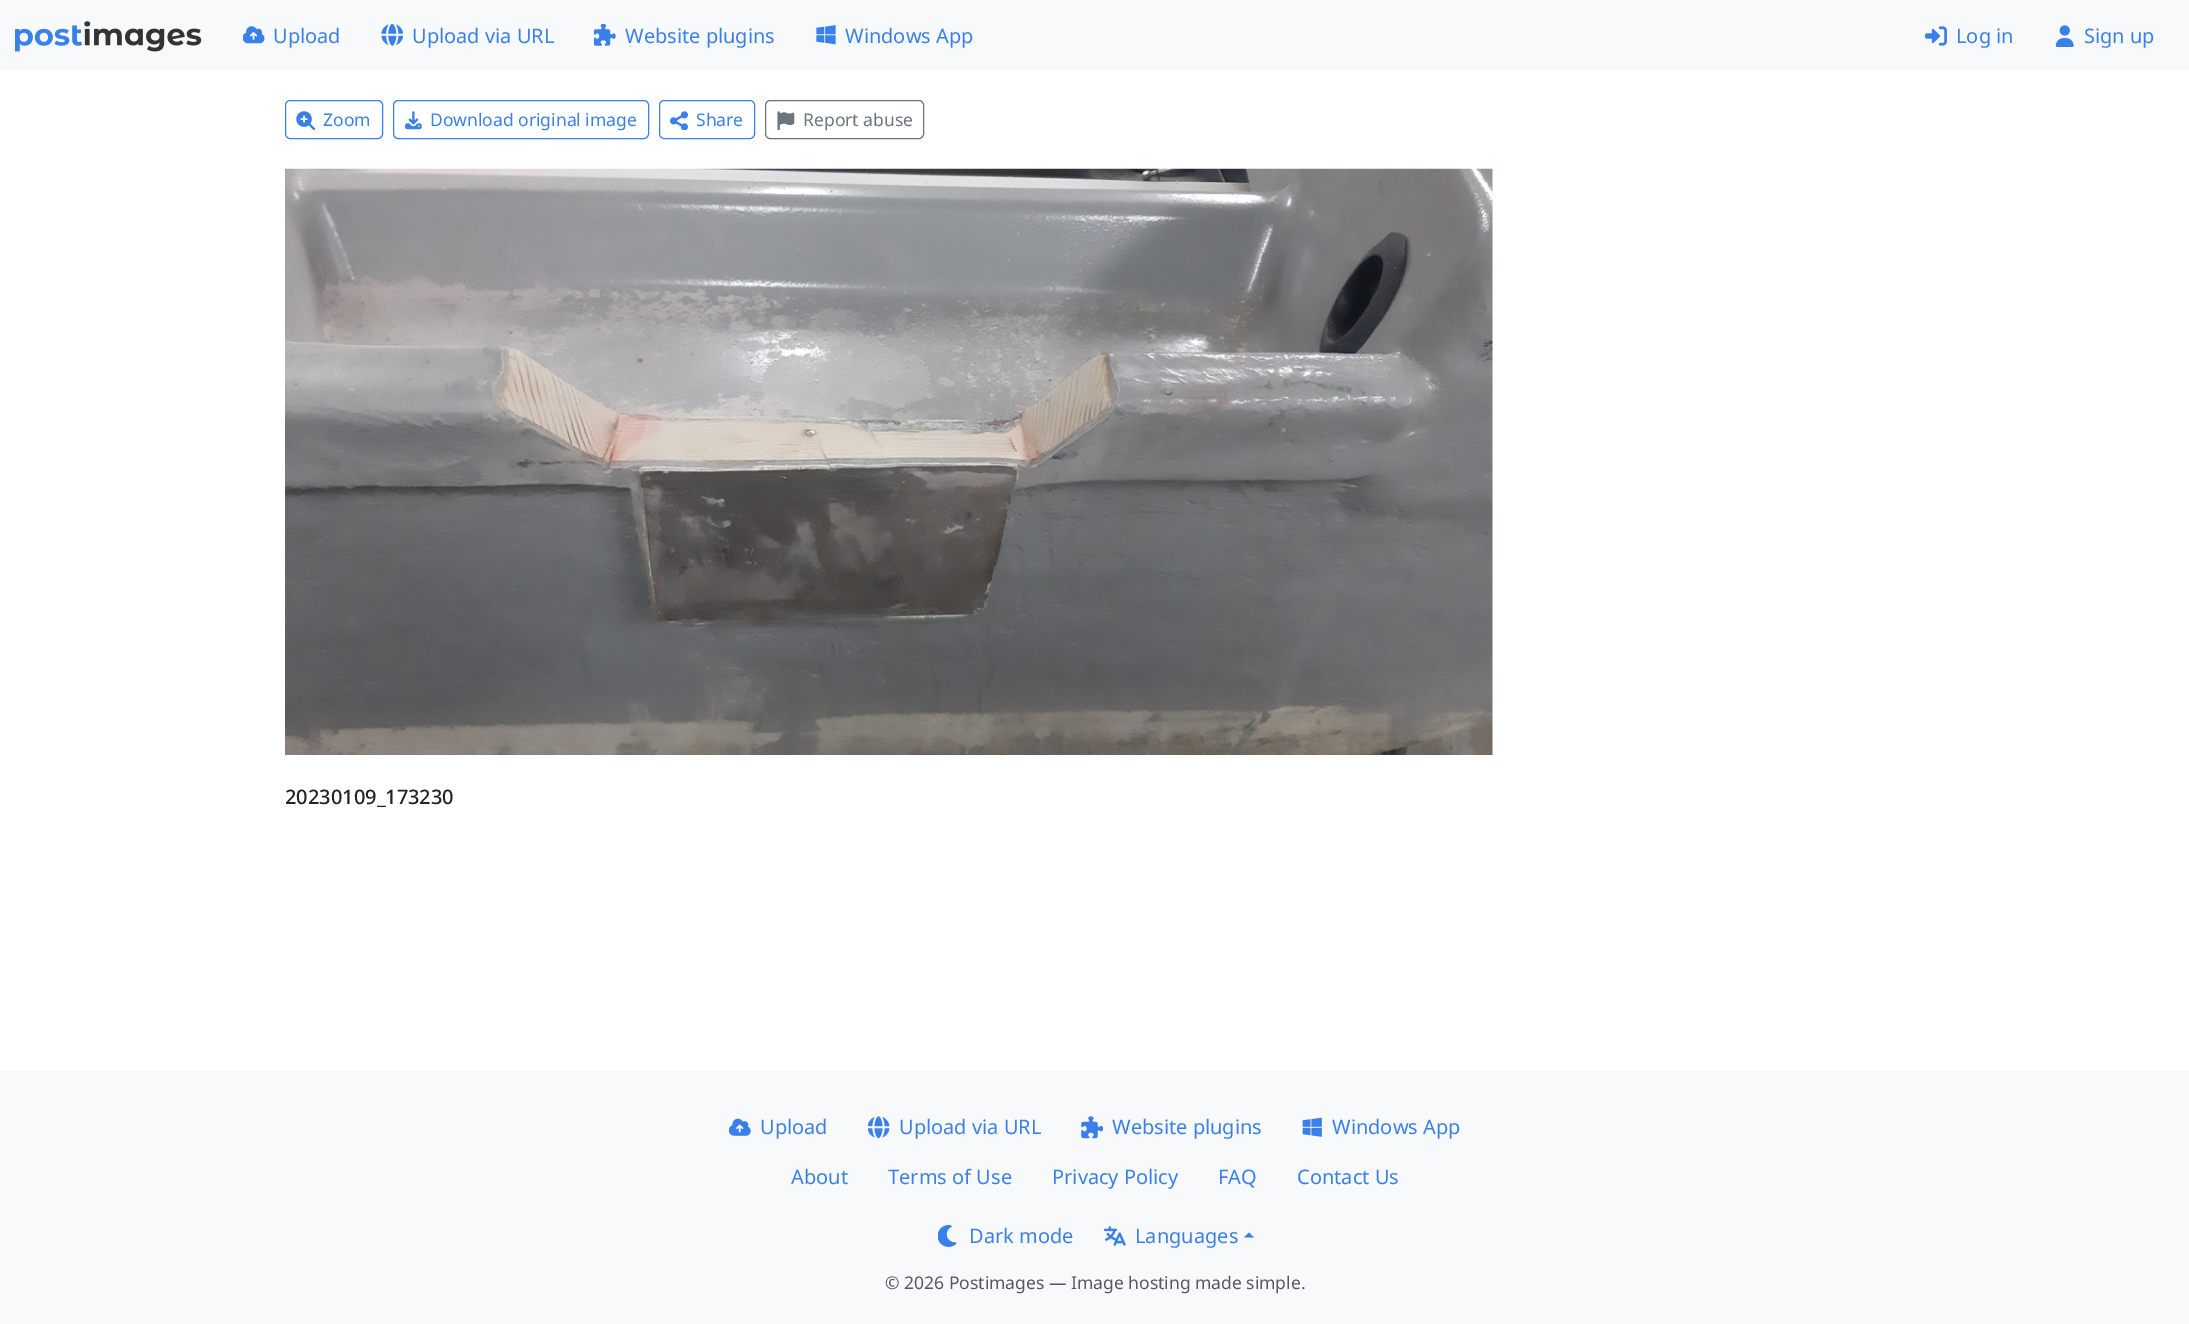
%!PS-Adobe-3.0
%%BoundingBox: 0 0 2189 1324
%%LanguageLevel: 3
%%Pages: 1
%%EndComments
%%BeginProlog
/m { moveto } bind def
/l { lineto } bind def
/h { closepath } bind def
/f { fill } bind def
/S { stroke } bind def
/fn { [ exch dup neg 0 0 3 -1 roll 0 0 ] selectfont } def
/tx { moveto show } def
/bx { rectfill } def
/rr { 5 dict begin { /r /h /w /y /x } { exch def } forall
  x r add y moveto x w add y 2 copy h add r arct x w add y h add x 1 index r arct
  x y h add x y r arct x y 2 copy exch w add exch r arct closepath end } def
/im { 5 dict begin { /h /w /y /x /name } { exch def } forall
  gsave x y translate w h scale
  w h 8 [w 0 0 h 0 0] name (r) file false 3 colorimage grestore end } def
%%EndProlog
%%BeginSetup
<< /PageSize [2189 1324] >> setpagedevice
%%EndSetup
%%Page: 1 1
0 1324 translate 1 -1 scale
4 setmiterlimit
1 setgray
0 0 2189 1324 bx
0.973 0.976 0.98 setrgbcolor
0 0 2189 70 bx
(image0.raw) 15 21 187 31 im
(image1.raw) 243 26 22 18 im
/NotoSans-Regular 20 fn
0.227 0.502 0.918 setrgbcolor
(Upload) 273 43 tx
(image2.raw) 381 24 22 22 im
(Upload via URL) 412 43 tx
(image3.raw) 594 24 22 22 im
(Website plugins) 625 43 tx
(image4.raw) 816 25 20 20 im
(Windows App) 845 43 tx
(image5.raw) 1925 26 22 20 im
(Log in) 1956 43 tx
(image6.raw) 2055 25 19 22 im
(Sign up) 2084 43 tx
285.5 100.5 97 38 4.5 rr S
(image7.raw) 296 111 19 19 im
/NotoSans-Regular 17.5 fn
(Zoom) 323 126 tx
393.5 100.5 255 38 4.5 rr S
(image8.raw) 404 111 18 19 im
(Download original image) 430 126 tx
659.5 100.5 95 38 4.5 rr S
(image9.raw) 670 111 18 19 im
(Share) 696 126 tx
0.424 0.459 0.49 setrgbcolor
765.5 100.5 158 38 4.5 rr S
(image10.raw) 777 111 18 19 im
(Report abuse) 803 126 tx
(image11.raw) 285 168 1208 587 im
/NotoSans-Medium 20 fn
0.129 0.145 0.161 setrgbcolor
(20230109_173230) 285 804 tx
0.973 0.976 0.98 setrgbcolor
0 1071 2189 253 bx
(image12.raw) 729 1118 22 18 im
/NotoSans-Regular 20 fn
0.227 0.502 0.918 setrgbcolor
(Upload) 760 1134 tx
(image13.raw) 868 1116 22 23 im
(Upload via URL) 899 1134 tx
(image14.raw) 1081 1116 22 23 im
(Website plugins) 1112 1134 tx
(image15.raw) 1302 1117 20 20 im
(Windows App) 1332 1134 tx
(About) 791 1184 tx
(Terms of Use) 888 1184 tx
(Privacy Policy) 1052 1184 tx
(FAQ) 1218 1184 tx
(Contact Us) 1297 1184 tx
(image16.raw) 938 1225 19 22 im
(Dark mode) 969 1243 tx
(image17.raw) 1104 1226 22 20 im
(Languages) 1135 1243 tx
1254 1237.5 m 1244 1237.5 l 1249 1232.5 l h f
/NotoSans-Regular 17.5 fn
0.341 0.353 0.365 setrgbcolor
(© 2026 Postimages — Image hosting made simple.) 885 1289 tx
showpage
%%EOF
